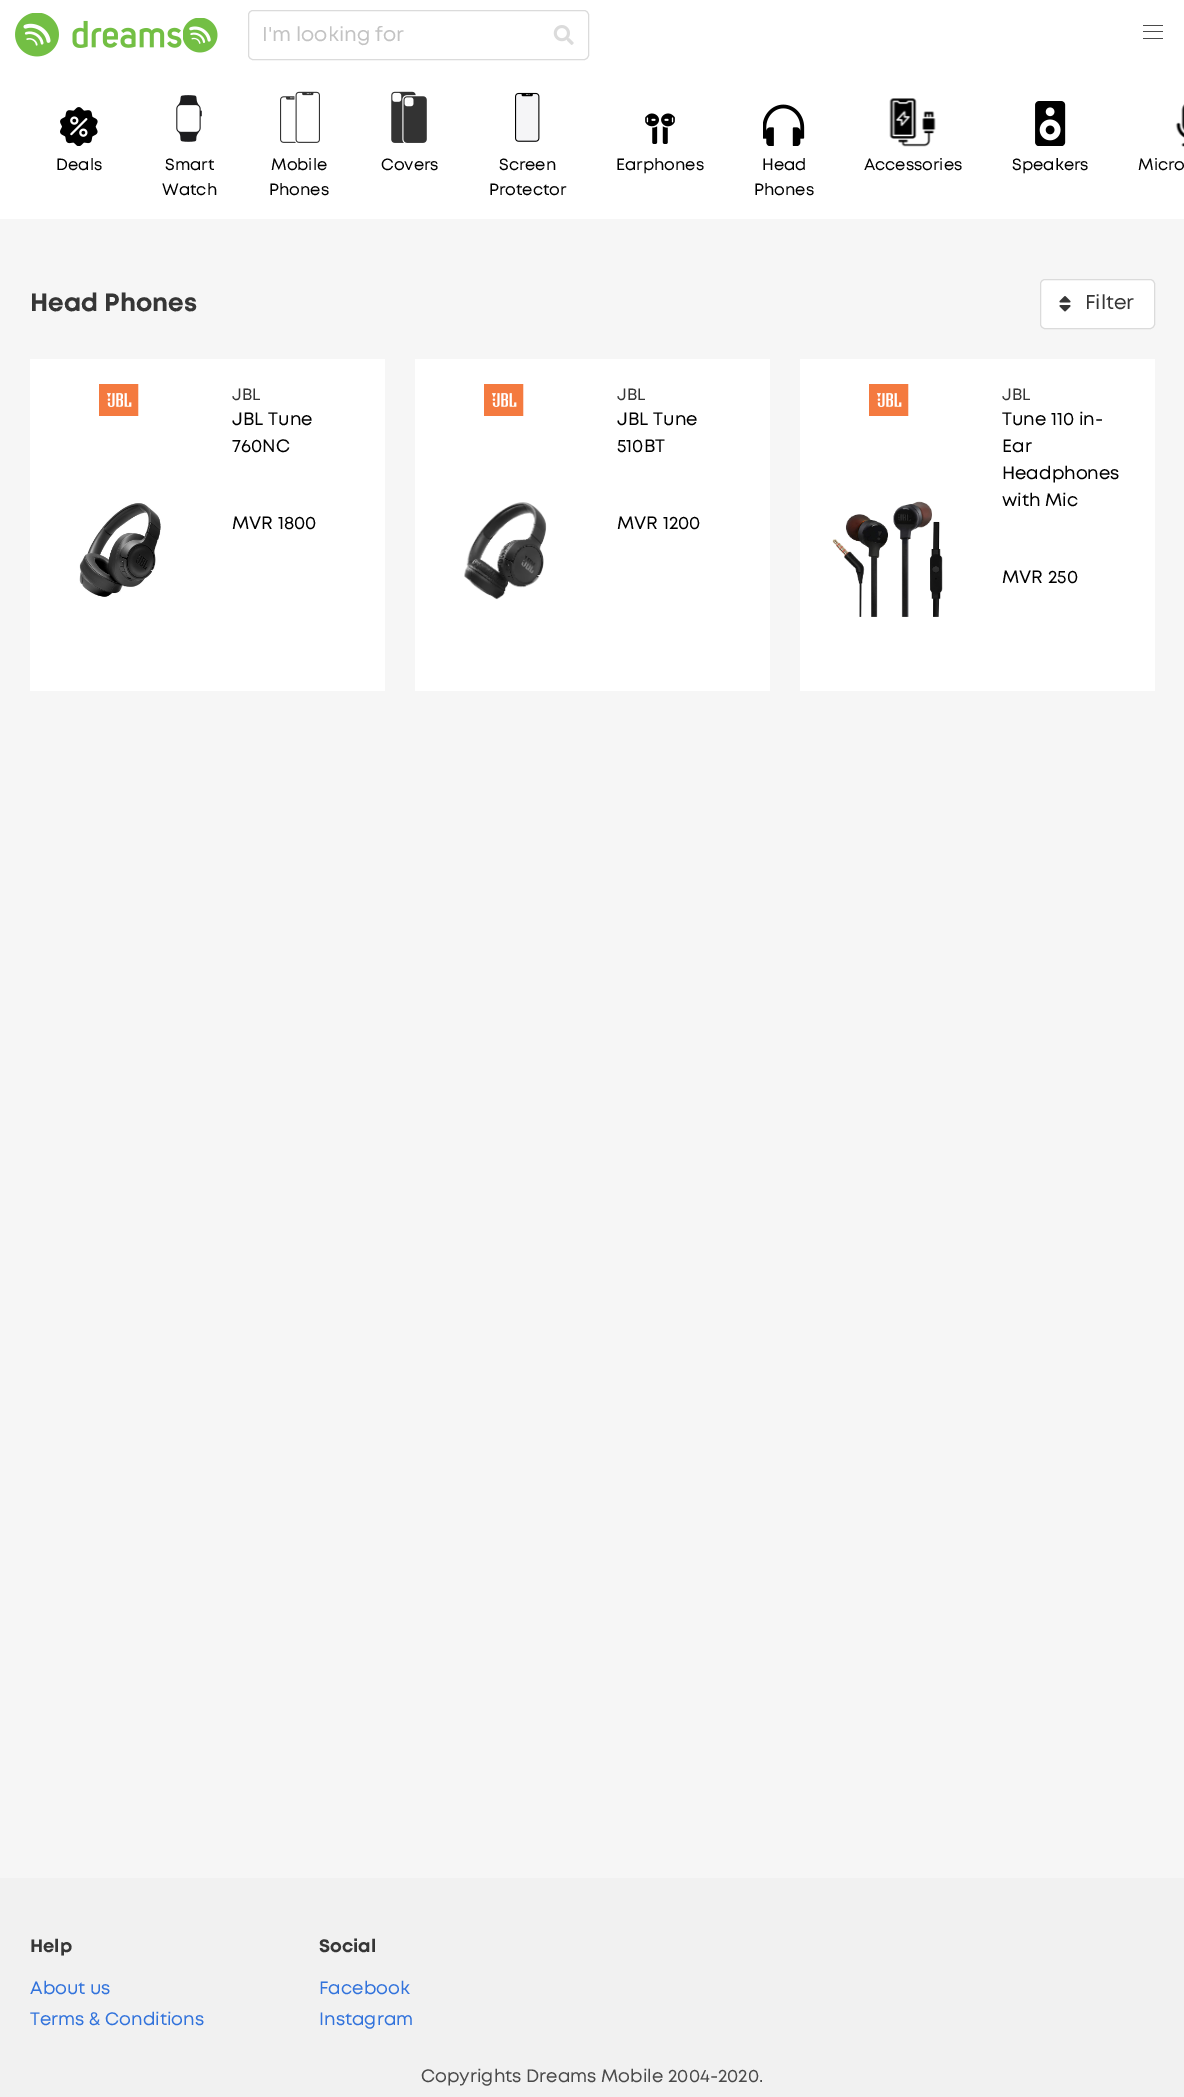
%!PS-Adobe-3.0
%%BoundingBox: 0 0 1184 2097
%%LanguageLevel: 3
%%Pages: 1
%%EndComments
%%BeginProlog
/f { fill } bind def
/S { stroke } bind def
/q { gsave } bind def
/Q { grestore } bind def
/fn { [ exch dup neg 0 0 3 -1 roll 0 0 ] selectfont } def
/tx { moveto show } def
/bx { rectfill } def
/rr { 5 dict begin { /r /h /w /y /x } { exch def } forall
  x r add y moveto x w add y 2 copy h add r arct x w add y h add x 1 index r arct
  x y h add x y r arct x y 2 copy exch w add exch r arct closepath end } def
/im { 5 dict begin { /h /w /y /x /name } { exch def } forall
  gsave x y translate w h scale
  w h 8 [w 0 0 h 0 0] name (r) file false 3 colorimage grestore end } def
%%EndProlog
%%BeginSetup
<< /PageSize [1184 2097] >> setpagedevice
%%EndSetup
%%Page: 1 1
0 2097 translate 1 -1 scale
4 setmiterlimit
1 setgray
0 0 1184 2097 bx
(image0.raw) 15 13 167 44 im
(image1.raw) 183 18 35 35 im
0.859 setgray
248.5 10.5 340 49 4.5 rr S
/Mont-Regular 20 fn
0.765 setgray
(I'm looking for) 262 41 tx
(image2.raw) 553 25 21 20 im
0.29 setgray
1143 25 20 1 bx
1143 31 20 1 bx
1143 38 20 1 bx
(image3.raw) 60 107 38 39 im
/Mont-Regular 16.25 fn
0 setgray
(Deals) 56 170 tx
(image4.raw) 176 95 26 47 im
(Smart) 165 170 tx
(Watch) 162 195 tx
(image5.raw) 280 91 40 52 im
(Mobile) 271 170 tx
(Phones) 269 195 tx
(image6.raw) 391 91 36 52 im
(Covers) 381 170 tx
(image7.raw) 515 92 25 50 im
(Screen) 499 170 tx
(Protector) 489 195 tx
(image8.raw) 645 113 30 31 im
(Earphones) 616 170 tx
(image9.raw) 763 104 42 42 im
(Head) 762 170 tx
(Phones) 754 195 tx
(image10.raw) 889 98 47 49 im
(Accessories) 864 170 tx
(image11.raw) 1035 101 31 45 im
(Speakers) 1012 170 tx
(image12.raw) 1175 104 9 43 im
(Micro) 1138 170 tx
0.965 setgray
0 219 1184 1659 bx
/Mont-Bold 25 fn
0.212 setgray
(Head Phones) 30 311 tx
1 setgray
1040.5 279.5 114 49 4.5 rr q f Q
0.859 setgray
S
(image13.raw) 1059 296 12 16 im
/Mont-Regular 20 fn
0.212 setgray
(Filter) 1085 309 tx
1 setgray
30 359 355 332 bx
(image14.raw) 99 384 40 32 im
(image15.raw) 79 503 82 94 im
/Mont-Regular 16.25 fn
0.212 setgray
(JBL) 232 400 tx
/Mont-Regular 18 fn
0 setgray
(JBL Tune) 232 425 tx
(760NC) 232 452 tx
(MVR 1800) 232 529 tx
1 setgray
415 359 355 332 bx
(image14.raw) 484 384 40 32 im
(image16.raw) 464 502 83 98 im
/Mont-Regular 16.25 fn
0.212 setgray
(JBL) 617 400 tx
/Mont-Regular 18 fn
0 setgray
(JBL Tune) 617 425 tx
(510BT) 617 452 tx
(MVR 1200) 617 529 tx
1 setgray
800 359 355 332 bx
(image14.raw) 869 384 40 32 im
(image17.raw) 832 501 111 116 im
/Mont-Regular 16.25 fn
0.212 setgray
(JBL) 1002 400 tx
/Mont-Regular 18 fn
0 setgray
(Tune 110 in-) 1002 425 tx
(Ear) 1002 452 tx
(Headphones) 1002 479 tx
(with Mic) 1002 506 tx
(MVR 250) 1002 583 tx
0.945 setgray
0 1878 1184 219 bx
/Mont-Bold 18 fn
0.212 setgray
(Help) 30 1952 tx
/Mont-Regular 18 fn
0.196 0.451 0.863 setrgbcolor
(About us) 30 1994 tx
(Terms & Conditions) 30 2025 tx
/Mont-Bold 18 fn
0.212 setgray
(Social) 319 1952 tx
/Mont-Regular 18 fn
0.196 0.451 0.863 setrgbcolor
(Facebook) 319 1994 tx
(Instagram) 319 2025 tx
0.29 setgray
(Copyrights Dreams Mobile 2004-2020.) 421 2082 tx
showpage
%%EOF
